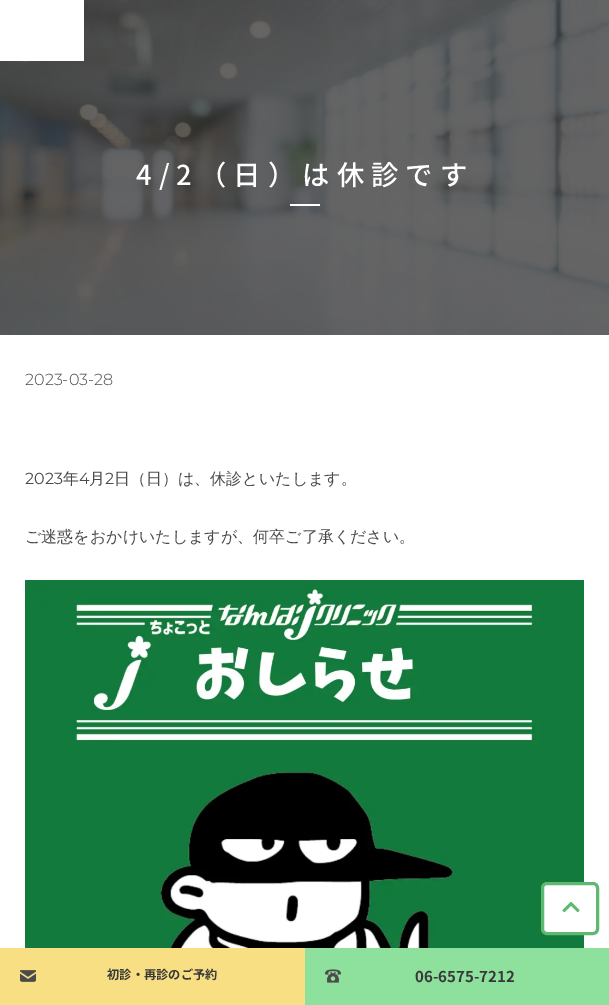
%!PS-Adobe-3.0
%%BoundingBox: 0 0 609 1005
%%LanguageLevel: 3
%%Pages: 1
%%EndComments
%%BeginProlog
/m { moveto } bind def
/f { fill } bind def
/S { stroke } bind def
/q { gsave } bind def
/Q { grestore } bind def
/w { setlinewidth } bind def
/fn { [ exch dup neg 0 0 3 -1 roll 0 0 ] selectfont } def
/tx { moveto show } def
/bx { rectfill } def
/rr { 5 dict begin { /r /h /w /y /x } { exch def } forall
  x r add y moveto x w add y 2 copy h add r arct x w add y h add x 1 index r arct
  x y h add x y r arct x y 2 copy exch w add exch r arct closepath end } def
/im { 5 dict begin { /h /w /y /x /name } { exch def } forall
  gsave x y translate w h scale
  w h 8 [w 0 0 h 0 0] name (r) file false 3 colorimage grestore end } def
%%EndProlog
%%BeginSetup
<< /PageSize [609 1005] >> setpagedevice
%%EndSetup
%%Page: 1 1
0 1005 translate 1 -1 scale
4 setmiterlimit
1 setgray
0 0 609 1005 bx
(image0.raw) 0 0 609 335 im
0 0 84 61 bx
/NotoSansJP-Medium 27.4 fn
136 185 m 7 0 (4/2（日）は休診です) ashow
290 204 30 2 bx
/Montserrat-Light 16 fn
0.29 setgray
(2023-03-28) 25 385 tx
/Montserrat-Regular 16 fn
(2023) 25 484 tx
/WenQuanYiZenHei-Medium 16 fn
(年) 63 484 tx
/Montserrat-Regular 16 fn
(4) 79 484 tx
/WenQuanYiZenHei-Medium 16 fn
(月) 89 484 tx
/Montserrat-Regular 16 fn
(2) 105 484 tx
/WenQuanYiZenHei-Medium 16 fn
(日（日）は、休診といたします。) 114 484 tx
(ご迷惑をおかけいたしますが、何卒ご了承ください。) 25 542 tx
(image1.raw) 25 580 559 368 im
1 setgray
542.5 883.5 55 50 4.5 rr q f Q
0.376 0.725 0.439 setrgbcolor
3 w
S
(image2.raw) 562 901 18 12 im
0.973 0.875 0.514 setrgbcolor
0 948 305 57 bx
(image3.raw) 20 970 16 12 im
/NotoSansJP-Bold 12.25 fn
0.22 setgray
(初診・再診のご予約) 107 979 tx
0.557 0.878 0.616 setrgbcolor
305 948 304 57 bx
(image4.raw) 325 969 16 14 im
/NotoSansJP-Bold 15 fn
0.22 setgray
(06-6575-7212) 415 982 tx
showpage
%%EOF
